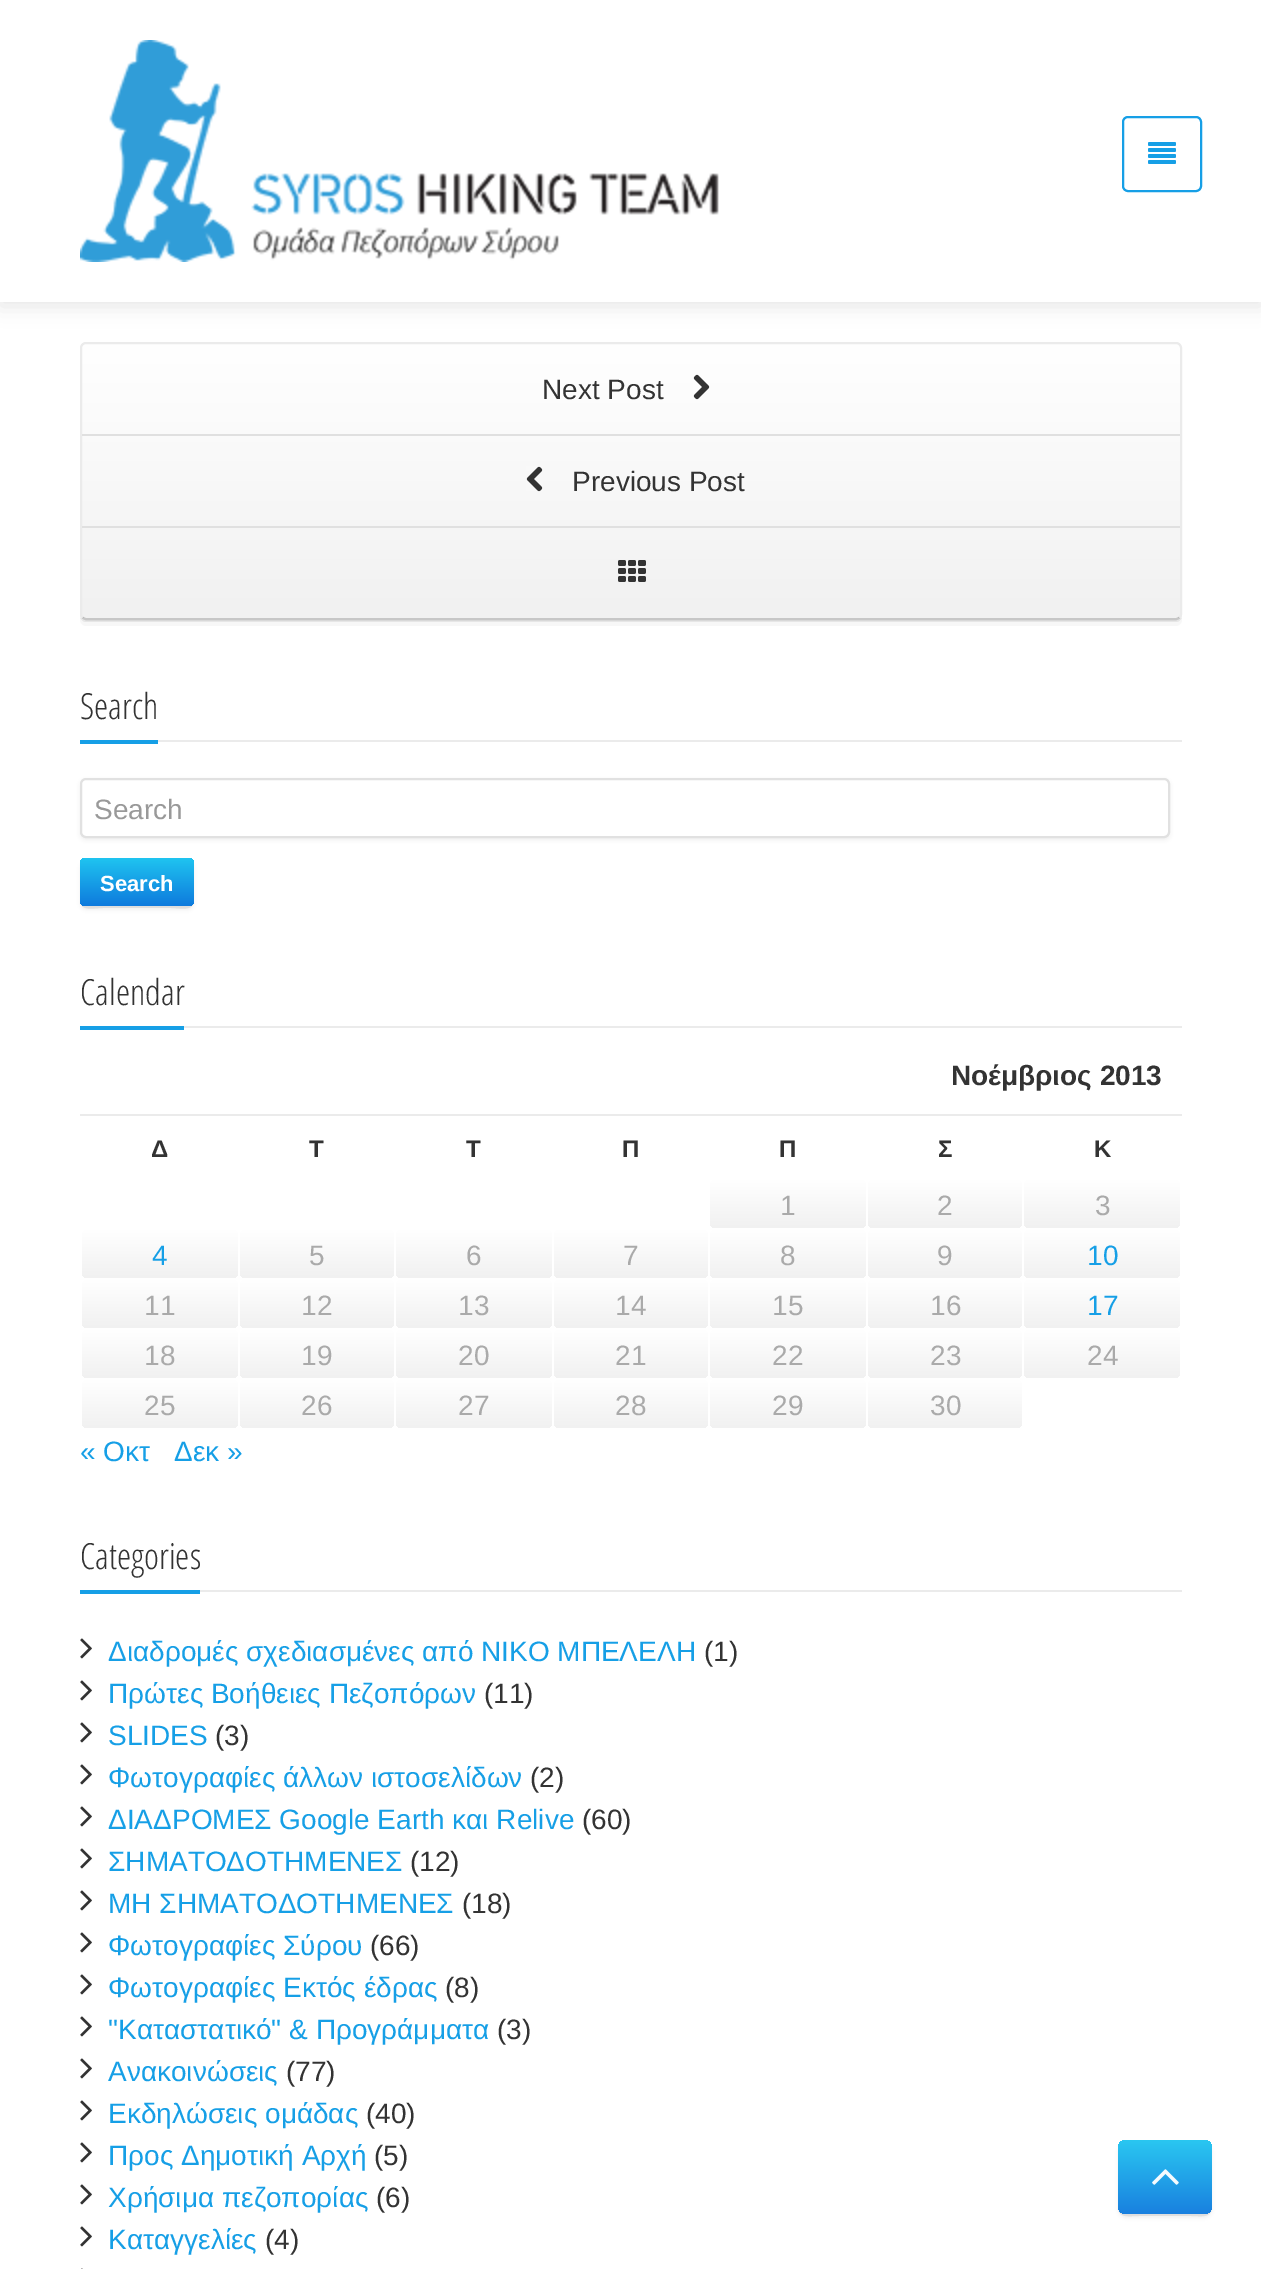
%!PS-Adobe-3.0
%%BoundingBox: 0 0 1261 2269
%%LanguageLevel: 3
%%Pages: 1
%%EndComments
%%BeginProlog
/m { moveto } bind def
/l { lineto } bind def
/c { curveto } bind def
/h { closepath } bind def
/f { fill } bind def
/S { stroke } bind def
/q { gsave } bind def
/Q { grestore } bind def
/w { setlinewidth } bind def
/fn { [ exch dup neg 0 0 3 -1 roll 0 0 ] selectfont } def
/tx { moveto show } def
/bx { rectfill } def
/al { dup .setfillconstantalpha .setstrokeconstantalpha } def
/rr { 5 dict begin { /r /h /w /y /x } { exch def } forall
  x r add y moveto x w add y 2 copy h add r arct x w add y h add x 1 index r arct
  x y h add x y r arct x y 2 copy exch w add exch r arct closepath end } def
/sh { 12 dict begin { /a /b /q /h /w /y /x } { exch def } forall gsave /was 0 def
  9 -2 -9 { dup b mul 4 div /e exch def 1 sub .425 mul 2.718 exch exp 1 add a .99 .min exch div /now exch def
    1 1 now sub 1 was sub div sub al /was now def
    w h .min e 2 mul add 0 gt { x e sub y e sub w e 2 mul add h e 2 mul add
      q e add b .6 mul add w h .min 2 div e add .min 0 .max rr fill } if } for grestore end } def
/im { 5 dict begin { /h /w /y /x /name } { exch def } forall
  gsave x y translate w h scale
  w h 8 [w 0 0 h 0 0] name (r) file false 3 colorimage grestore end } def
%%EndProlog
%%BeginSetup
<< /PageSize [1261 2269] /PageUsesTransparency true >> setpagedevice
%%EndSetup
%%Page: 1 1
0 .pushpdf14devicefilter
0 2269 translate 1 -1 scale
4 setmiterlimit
1 setgray
0 0 1261 2269 bx
0 setgray
0 4 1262 302 0 10 0.1 sh
1 setgray
0 0 1261 302 bx
(image0.raw) 80 40 639 222 im
0.086 0.624 0.902 setrgbcolor
2 w
1123 117 78 74 5 rr S
(image1.raw) 1148 142 28 22 im
0.929 setgray
80 614 m 80 616 l 80 619 83 622 86 622 c 1176 622 l 1179 622 1182 619 1182 616 c 1182 614 l 1182 617 1179 620 1176 620 c 86 620 l 83 620 80 617 80 614 c h f
0.03 al
0 setgray
80 614 m 80 620 l 80 623 83 626 86 626 c 1176 626 l 1179 626 1182 623 1182 620 c 1182 614 l 1182 617 1179 620 1176 620 c 86 620 l 83 620 80 617 80 614 c h f
1 al
1 setgray
80 342 1102 278 6 rr f
q
80 342 1102 278 6 rr clip newpath
q 80 344 m 1182 344 l 1182 618 l 80 618 l h clip newpath
<< /ShadingType 2 /ColorSpace /DeviceRGB /Coords [631 344 631 618] /Extend [true true] /Function << /FunctionType 2 /Domain [0 1] /C0 [1 1 1] /C1 [0.945 0.945 0.945] /N 1 >> >> shfill Q
Q
0.22 al
0 setgray
1179.5 617.5 m 1178.5 618.5 1177.5 619 1176 619 c 86 619 l 84.5 619 83.5 618.5 82.5 617.5 c S
1 al
0.922 setgray
82.5 617.5 m 81.5 616.5 81 615.5 81 614 c 81 348 l 81 346.5 81.5 345.5 82.5 344.5 c 83.5 343.5 84.5 343 86 343 c 1176 343 l 1177.5 343 1178.5 343.5 1179.5 344.5 c 1180.5 345.5 1181 346.5 1181 348 c 1181 614 l 1181 615.5 1180.5 616.5 1179.5 617.5 c S
0.878 setgray
82 434 1098 2 bx
/LiberationSans-Regular 28 fn
0.2 setgray
(Next Post) 542 399 tx
(image2.raw) 693 374 17 26 im
0.878 setgray
82 526 1098 2 bx
(image3.raw) 526 466 17 26 im
0.2 setgray
(Previous Post) 572 491 tx
(image4.raw) 618 560 28 22 im
0.922 setgray
158 740 1024 2 bx
0.086 0.624 0.902 setrgbcolor
80 740 78 4 bx
/OpenSansCondensed-Light 36 fn
0.2 setgray
(Search) 80 719 tx
0.706 setgray
80 780 1090 60 6 2 0.2 sh
1 setgray
81 779 1088 58 5 rr q f Q
0.882 setgray
S
/LiberationSans-Regular 28 fn
0.6 setgray
(Search) 94 819 tx
0.922 setgray
80 900 m 80 912 94 908 103 908 c 171 908 l 180 908 194 912 194 900 c 194 903 191 906 188 906 c 86 906 l 83 906 80 903 80 900 c h f
0 setgray
80 862 114 48 6 2 0.05 sh
q 80 858 114 48 6 rr clip newpath
<< /ShadingType 2 /ColorSpace /DeviceRGB /Coords [137 858 137 906] /Extend [true true] /Function << /FunctionType 2 /Domain [0 1] /C0 [0.122 0.769 0.941] /C1 [0.055 0.478 0.867] /N 1 >> >> shfill Q
/LiberationSans-Bold 22 fn
1 setgray
(Search) 100 891 tx
0.922 setgray
184 1026 998 2 bx
0.086 0.624 0.902 setrgbcolor
80 1026 104 4 bx
/OpenSansCondensed-Light 36 fn
0.2 setgray
(Calendar) 80 1005 tx
0.922 setgray
80 1114 1102 2 bx
/LiberationSans-Bold 28 fn
0.2 setgray
(Νοέμβριος 2013) 951 1085 tx
/LiberationSans-Bold 24 fn
(Δ) 151 1157 tx
(Τ) 309 1157 tx
(Τ) 466 1157 tx
(Π) 622 1157 tx
(Π) 779 1157 tx
(Σ) 938 1157 tx
(Κ) 1094 1157 tx
q 710 1180 156 48 6 rr clip newpath
<< /ShadingType 2 /ColorSpace /DeviceRGB /Coords [788 1180 788 1228] /Extend [true true] /Function << /FunctionType 2 /Domain [0 1] /C0 [1 1 1] /C1 [0.945 0.945 0.945] /N 1 >> >> shfill Q
/LiberationSans-Regular 28 fn
0.667 setgray
(1) 780 1215 tx
q 868 1180 154 48 6 rr clip newpath
<< /ShadingType 2 /ColorSpace /DeviceRGB /Coords [945 1180 945 1228] /Extend [true true] /Function << /FunctionType 2 /Domain [0 1] /C0 [1 1 1] /C1 [0.945 0.945 0.945] /N 1 >> >> shfill Q
(2) 937 1215 tx
q 1024 1180 156 48 6 rr clip newpath
<< /ShadingType 2 /ColorSpace /DeviceRGB /Coords [1102 1180 1102 1228] /Extend [true true] /Function << /FunctionType 2 /Domain [0 1] /C0 [1 1 1] /C1 [0.945 0.945 0.945] /N 1 >> >> shfill Q
(3) 1095 1215 tx
q 82 1230 156 48 6 rr clip newpath
<< /ShadingType 2 /ColorSpace /DeviceRGB /Coords [160 1230 160 1278] /Extend [true true] /Function << /FunctionType 2 /Domain [0 1] /C0 [1 1 1] /C1 [0.945 0.945 0.945] /N 1 >> >> shfill Q
0.086 0.624 0.902 setrgbcolor
(4) 152 1265 tx
q 240 1230 154 48 6 rr clip newpath
<< /ShadingType 2 /ColorSpace /DeviceRGB /Coords [317 1230 317 1278] /Extend [true true] /Function << /FunctionType 2 /Domain [0 1] /C0 [1 1 1] /C1 [0.945 0.945 0.945] /N 1 >> >> shfill Q
0.667 setgray
(5) 309 1265 tx
q 396 1230 156 48 6 rr clip newpath
<< /ShadingType 2 /ColorSpace /DeviceRGB /Coords [474 1230 474 1278] /Extend [true true] /Function << /FunctionType 2 /Domain [0 1] /C0 [1 1 1] /C1 [0.945 0.945 0.945] /N 1 >> >> shfill Q
(6) 466 1265 tx
q 554 1230 154 48 6 rr clip newpath
<< /ShadingType 2 /ColorSpace /DeviceRGB /Coords [631 1230 631 1278] /Extend [true true] /Function << /FunctionType 2 /Domain [0 1] /C0 [1 1 1] /C1 [0.945 0.945 0.945] /N 1 >> >> shfill Q
(7) 623 1265 tx
q 710 1230 156 48 6 rr clip newpath
<< /ShadingType 2 /ColorSpace /DeviceRGB /Coords [788 1230 788 1278] /Extend [true true] /Function << /FunctionType 2 /Domain [0 1] /C0 [1 1 1] /C1 [0.945 0.945 0.945] /N 1 >> >> shfill Q
(8) 780 1265 tx
q 868 1230 154 48 6 rr clip newpath
<< /ShadingType 2 /ColorSpace /DeviceRGB /Coords [945 1230 945 1278] /Extend [true true] /Function << /FunctionType 2 /Domain [0 1] /C0 [1 1 1] /C1 [0.945 0.945 0.945] /N 1 >> >> shfill Q
(9) 937 1265 tx
q 1024 1230 156 48 6 rr clip newpath
<< /ShadingType 2 /ColorSpace /DeviceRGB /Coords [1102 1230 1102 1278] /Extend [true true] /Function << /FunctionType 2 /Domain [0 1] /C0 [1 1 1] /C1 [0.945 0.945 0.945] /N 1 >> >> shfill Q
0.086 0.624 0.902 setrgbcolor
(10) 1087 1265 tx
q 82 1280 156 48 6 rr clip newpath
<< /ShadingType 2 /ColorSpace /DeviceRGB /Coords [160 1280 160 1328] /Extend [true true] /Function << /FunctionType 2 /Domain [0 1] /C0 [1 1 1] /C1 [0.945 0.945 0.945] /N 1 >> >> shfill Q
0.667 setgray
(11) 144 1315 tx
q 240 1280 154 48 6 rr clip newpath
<< /ShadingType 2 /ColorSpace /DeviceRGB /Coords [317 1280 317 1328] /Extend [true true] /Function << /FunctionType 2 /Domain [0 1] /C0 [1 1 1] /C1 [0.945 0.945 0.945] /N 1 >> >> shfill Q
(12) 301 1315 tx
q 396 1280 156 48 6 rr clip newpath
<< /ShadingType 2 /ColorSpace /DeviceRGB /Coords [474 1280 474 1328] /Extend [true true] /Function << /FunctionType 2 /Domain [0 1] /C0 [1 1 1] /C1 [0.945 0.945 0.945] /N 1 >> >> shfill Q
(13) 458 1315 tx
q 554 1280 154 48 6 rr clip newpath
<< /ShadingType 2 /ColorSpace /DeviceRGB /Coords [631 1280 631 1328] /Extend [true true] /Function << /FunctionType 2 /Domain [0 1] /C0 [1 1 1] /C1 [0.945 0.945 0.945] /N 1 >> >> shfill Q
(14) 615 1315 tx
q 710 1280 156 48 6 rr clip newpath
<< /ShadingType 2 /ColorSpace /DeviceRGB /Coords [788 1280 788 1328] /Extend [true true] /Function << /FunctionType 2 /Domain [0 1] /C0 [1 1 1] /C1 [0.945 0.945 0.945] /N 1 >> >> shfill Q
(15) 772 1315 tx
q 868 1280 154 48 6 rr clip newpath
<< /ShadingType 2 /ColorSpace /DeviceRGB /Coords [945 1280 945 1328] /Extend [true true] /Function << /FunctionType 2 /Domain [0 1] /C0 [1 1 1] /C1 [0.945 0.945 0.945] /N 1 >> >> shfill Q
(16) 930 1315 tx
q 1024 1280 156 48 6 rr clip newpath
<< /ShadingType 2 /ColorSpace /DeviceRGB /Coords [1102 1280 1102 1328] /Extend [true true] /Function << /FunctionType 2 /Domain [0 1] /C0 [1 1 1] /C1 [0.945 0.945 0.945] /N 1 >> >> shfill Q
0.086 0.624 0.902 setrgbcolor
(17) 1087 1315 tx
q 82 1330 156 48 6 rr clip newpath
<< /ShadingType 2 /ColorSpace /DeviceRGB /Coords [160 1330 160 1378] /Extend [true true] /Function << /FunctionType 2 /Domain [0 1] /C0 [1 1 1] /C1 [0.945 0.945 0.945] /N 1 >> >> shfill Q
0.667 setgray
(18) 144 1365 tx
q 240 1330 154 48 6 rr clip newpath
<< /ShadingType 2 /ColorSpace /DeviceRGB /Coords [317 1330 317 1378] /Extend [true true] /Function << /FunctionType 2 /Domain [0 1] /C0 [1 1 1] /C1 [0.945 0.945 0.945] /N 1 >> >> shfill Q
(19) 301 1365 tx
q 396 1330 156 48 6 rr clip newpath
<< /ShadingType 2 /ColorSpace /DeviceRGB /Coords [474 1330 474 1378] /Extend [true true] /Function << /FunctionType 2 /Domain [0 1] /C0 [1 1 1] /C1 [0.945 0.945 0.945] /N 1 >> >> shfill Q
(20) 458 1365 tx
q 554 1330 154 48 6 rr clip newpath
<< /ShadingType 2 /ColorSpace /DeviceRGB /Coords [631 1330 631 1378] /Extend [true true] /Function << /FunctionType 2 /Domain [0 1] /C0 [1 1 1] /C1 [0.945 0.945 0.945] /N 1 >> >> shfill Q
(21) 615 1365 tx
q 710 1330 156 48 6 rr clip newpath
<< /ShadingType 2 /ColorSpace /DeviceRGB /Coords [788 1330 788 1378] /Extend [true true] /Function << /FunctionType 2 /Domain [0 1] /C0 [1 1 1] /C1 [0.945 0.945 0.945] /N 1 >> >> shfill Q
(22) 772 1365 tx
q 868 1330 154 48 6 rr clip newpath
<< /ShadingType 2 /ColorSpace /DeviceRGB /Coords [945 1330 945 1378] /Extend [true true] /Function << /FunctionType 2 /Domain [0 1] /C0 [1 1 1] /C1 [0.945 0.945 0.945] /N 1 >> >> shfill Q
(23) 930 1365 tx
q 1024 1330 156 48 6 rr clip newpath
<< /ShadingType 2 /ColorSpace /DeviceRGB /Coords [1102 1330 1102 1378] /Extend [true true] /Function << /FunctionType 2 /Domain [0 1] /C0 [1 1 1] /C1 [0.945 0.945 0.945] /N 1 >> >> shfill Q
(24) 1087 1365 tx
q 82 1380 156 48 6 rr clip newpath
<< /ShadingType 2 /ColorSpace /DeviceRGB /Coords [160 1380 160 1428] /Extend [true true] /Function << /FunctionType 2 /Domain [0 1] /C0 [1 1 1] /C1 [0.945 0.945 0.945] /N 1 >> >> shfill Q
(25) 144 1415 tx
q 240 1380 154 48 6 rr clip newpath
<< /ShadingType 2 /ColorSpace /DeviceRGB /Coords [317 1380 317 1428] /Extend [true true] /Function << /FunctionType 2 /Domain [0 1] /C0 [1 1 1] /C1 [0.945 0.945 0.945] /N 1 >> >> shfill Q
(26) 301 1415 tx
q 396 1380 156 48 6 rr clip newpath
<< /ShadingType 2 /ColorSpace /DeviceRGB /Coords [474 1380 474 1428] /Extend [true true] /Function << /FunctionType 2 /Domain [0 1] /C0 [1 1 1] /C1 [0.945 0.945 0.945] /N 1 >> >> shfill Q
(27) 458 1415 tx
q 554 1380 154 48 6 rr clip newpath
<< /ShadingType 2 /ColorSpace /DeviceRGB /Coords [631 1380 631 1428] /Extend [true true] /Function << /FunctionType 2 /Domain [0 1] /C0 [1 1 1] /C1 [0.945 0.945 0.945] /N 1 >> >> shfill Q
(28) 615 1415 tx
q 710 1380 156 48 6 rr clip newpath
<< /ShadingType 2 /ColorSpace /DeviceRGB /Coords [788 1380 788 1428] /Extend [true true] /Function << /FunctionType 2 /Domain [0 1] /C0 [1 1 1] /C1 [0.945 0.945 0.945] /N 1 >> >> shfill Q
(29) 772 1415 tx
q 868 1380 154 48 6 rr clip newpath
<< /ShadingType 2 /ColorSpace /DeviceRGB /Coords [945 1380 945 1428] /Extend [true true] /Function << /FunctionType 2 /Domain [0 1] /C0 [1 1 1] /C1 [0.945 0.945 0.945] /N 1 >> >> shfill Q
(30) 930 1415 tx
0.086 0.624 0.902 setrgbcolor
(« Οκτ) 80 1461 tx
(Δεκ ») 174 1461 tx
0.922 setgray
200 1590 982 2 bx
0.086 0.624 0.902 setrgbcolor
80 1590 120 4 bx
/OpenSansCondensed-Light 36 fn
0.2 setgray
(Categories) 80 1569 tx
(image5.raw) 80 1638 12 21 im
/LiberationSans-Regular 28 fn
0.086 0.624 0.902 setrgbcolor
(Διαδρομές σχεδιασμένες από ΝΙΚΟ ΜΠΕΛΕΛΗ) 108 1661 tx
0.2 setgray
(\(1\)) 704 1661 tx
(image5.raw) 80 1680 12 21 im
0.086 0.624 0.902 setrgbcolor
(Πρώτες Βοήθειες Πεζοπόρων) 108 1703 tx
0.2 setgray
(\(11\)) 484 1703 tx
(image5.raw) 80 1722 12 21 im
0.086 0.624 0.902 setrgbcolor
(SLIDES) 108 1745 tx
0.2 setgray
(\(3\)) 215 1745 tx
(image5.raw) 80 1764 12 21 im
0.086 0.624 0.902 setrgbcolor
(Φωτογραφίες άλλων ιστοσελίδων) 108 1787 tx
0.2 setgray
(\(2\)) 530 1787 tx
(image5.raw) 80 1806 12 21 im
0.086 0.624 0.902 setrgbcolor
(ΔΙΑΔΡΟΜΕΣ Google Earth και Relive) 108 1829 tx
0.2 setgray
(\(60\)) 582 1829 tx
(image5.raw) 80 1848 12 21 im
0.086 0.624 0.902 setrgbcolor
(ΣΗΜΑΤΟΔΟΤΗΜΕΝΕΣ) 108 1871 tx
0.2 setgray
(\(12\)) 410 1871 tx
(image5.raw) 80 1890 12 21 im
0.086 0.624 0.902 setrgbcolor
(ΜΗ ΣΗΜΑΤΟΔΟΤΗΜΕΝΕΣ) 108 1913 tx
0.2 setgray
(\(18\)) 462 1913 tx
(image5.raw) 80 1932 12 21 im
0.086 0.624 0.902 setrgbcolor
(Φωτογραφίες Σύρου) 108 1955 tx
0.2 setgray
(\(66\)) 370 1955 tx
(image5.raw) 80 1974 12 21 im
0.086 0.624 0.902 setrgbcolor
(Φωτογραφίες Εκτός έδρας) 108 1997 tx
0.2 setgray
(\(8\)) 445 1997 tx
(image5.raw) 80 2016 12 21 im
0.086 0.624 0.902 setrgbcolor
("Καταστατικό" & Προγράμματα) 108 2039 tx
0.2 setgray
(\(3\)) 497 2039 tx
(image5.raw) 80 2058 12 21 im
0.086 0.624 0.902 setrgbcolor
(Ανακοινώσεις) 108 2081 tx
0.2 setgray
(\(77\)) 286 2081 tx
(image5.raw) 80 2100 12 21 im
0.086 0.624 0.902 setrgbcolor
(Εκδηλώσεις ομάδας) 108 2123 tx
0.2 setgray
(\(40\)) 366 2123 tx
(image5.raw) 80 2142 12 21 im
0.086 0.624 0.902 setrgbcolor
(Προς Δημοτική Αρχή) 108 2165 tx
0.2 setgray
(\(5\)) 374 2165 tx
(image5.raw) 80 2184 12 21 im
0.086 0.624 0.902 setrgbcolor
(Χρήσιμα πεζοπορίας) 108 2207 tx
0.2 setgray
(\(6\)) 376 2207 tx
(image5.raw) 80 2226 12 21 im
0.086 0.624 0.902 setrgbcolor
(Καταγγελίες) 108 2249 tx
0.2 setgray
(\(4\)) 265 2249 tx
(image6.raw) 81 2268 2 1 im
0.925 setgray
1118 2206 m 1118 2219 1129 2216 1139 2216 c 1191 2216 l 1201 2216 1212 2219 1212 2206 c 1212 2210 1208 2214 1204 2214 c 1126 2214 l 1122 2214 1118 2210 1118 2206 c h f
0.047 setgray
1118 2144 94 74 8 2 0.05 sh
q 1118 2140 94 74 8 rr clip newpath
<< /ShadingType 2 /ColorSpace /DeviceRGB /Coords [1165 2140 1165 2214] /Extend [true true] /Function << /FunctionType 2 /Domain [0 1] /C0 [0.165 0.78 0.945] /C1 [0.098 0.502 0.875] /N 1 >> >> shfill Q
(image7.raw) 1152 2169 27 16 im
.poppdf14devicefilter showpage
%%EOF
